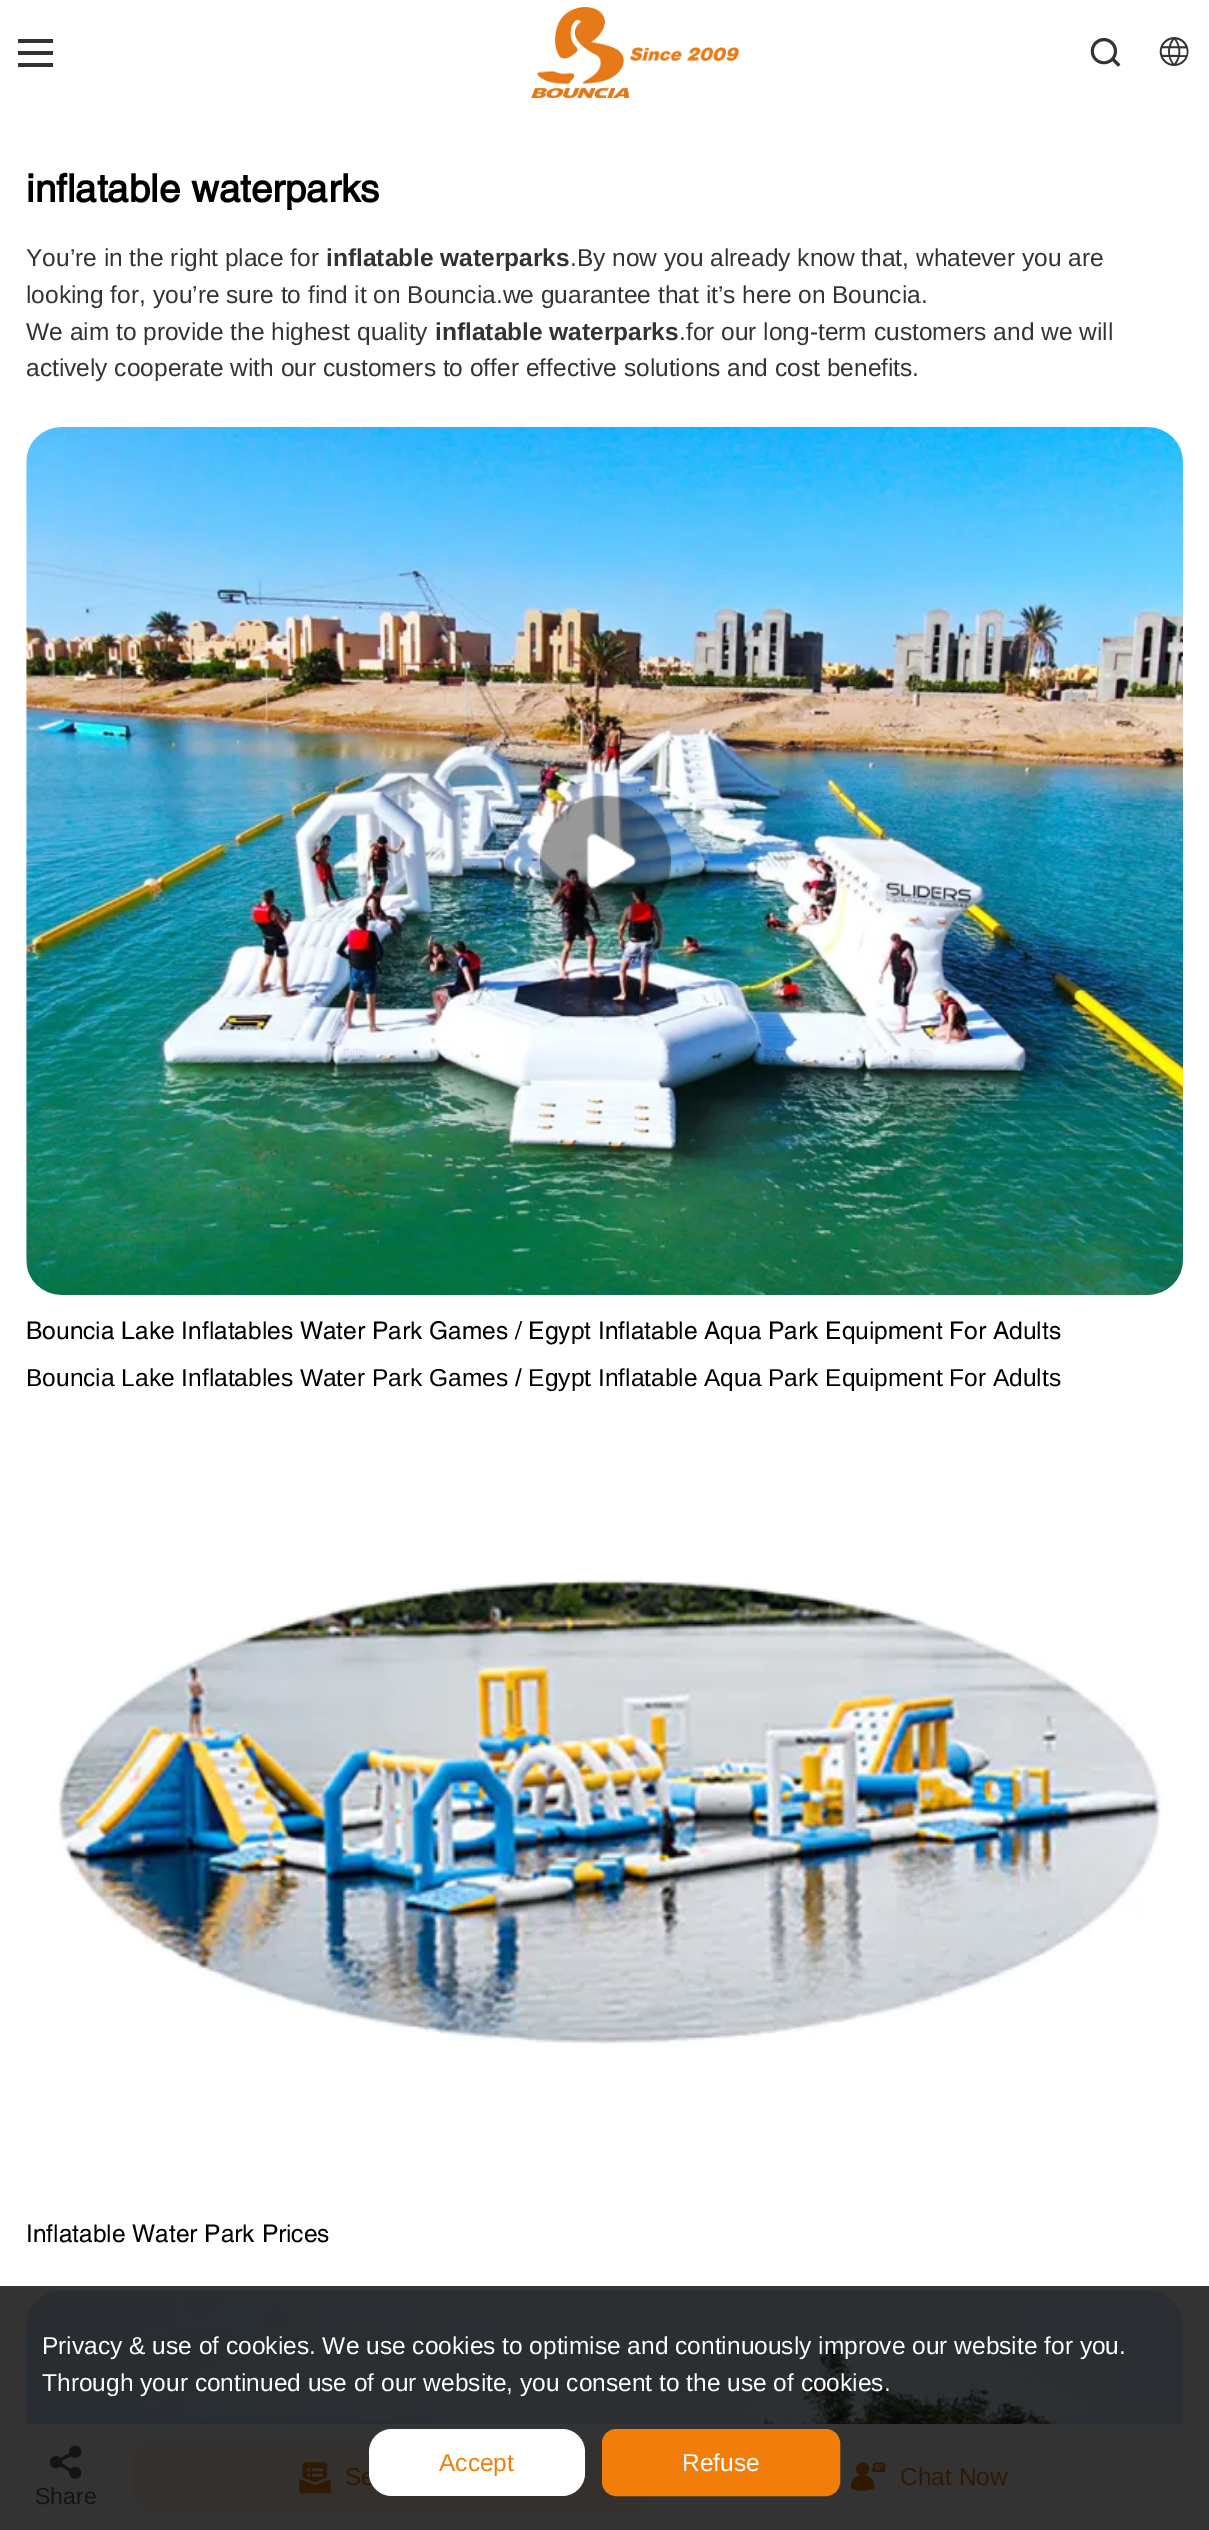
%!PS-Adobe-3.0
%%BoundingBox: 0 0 1209 2530
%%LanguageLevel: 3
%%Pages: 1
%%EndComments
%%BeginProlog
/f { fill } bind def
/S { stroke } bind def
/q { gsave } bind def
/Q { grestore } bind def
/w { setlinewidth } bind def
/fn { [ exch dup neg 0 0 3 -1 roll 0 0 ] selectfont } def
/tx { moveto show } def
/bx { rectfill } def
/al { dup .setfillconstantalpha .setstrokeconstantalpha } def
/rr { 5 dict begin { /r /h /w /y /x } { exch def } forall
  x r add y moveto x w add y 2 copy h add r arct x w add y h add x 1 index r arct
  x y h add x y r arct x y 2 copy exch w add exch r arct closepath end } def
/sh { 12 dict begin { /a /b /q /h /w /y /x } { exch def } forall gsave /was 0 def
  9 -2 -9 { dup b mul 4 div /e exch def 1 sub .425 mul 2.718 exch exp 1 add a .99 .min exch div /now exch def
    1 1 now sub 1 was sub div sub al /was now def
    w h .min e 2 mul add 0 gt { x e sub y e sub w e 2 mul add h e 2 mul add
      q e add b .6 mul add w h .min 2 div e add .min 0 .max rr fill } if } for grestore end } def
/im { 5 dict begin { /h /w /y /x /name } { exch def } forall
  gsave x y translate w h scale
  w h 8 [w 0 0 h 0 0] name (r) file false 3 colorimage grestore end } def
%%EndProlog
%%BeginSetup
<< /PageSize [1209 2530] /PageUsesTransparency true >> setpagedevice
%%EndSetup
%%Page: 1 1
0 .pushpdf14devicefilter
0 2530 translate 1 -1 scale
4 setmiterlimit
1 setgray
0 0 1209 2530 bx
0.2 setgray
0 2286 1209 138 bx
18 39 35 4 bx
18 51 35 4 bx
18 63 35 4 bx
(image0.raw) 531 7 208 91 im
(image1.raw) 1090 38 31 29 im
(image2.raw) 1159 37 30 29 im
/Helvetica-Bold 38.5 fn
0 setgray
(inflatable waterparks) 26 202 tx
/LiberationSans-Regular 24.5 fn
0.2 setgray
(You’re in the right place for) 26 266 tx
/LiberationSans-Bold 24.5 fn
(inflatable waterparks) 326 266 tx
/LiberationSans-Regular 24.5 fn
(.By now you already know that, whatever you are) 570 266 tx
(looking for, you’re sure to find it on Bouncia.we guarantee that it’s here on Bouncia.) 26 303 tx
(We aim to provide the highest quality) 26 340 tx
/LiberationSans-Bold 24.5 fn
(inflatable waterparks) 435 340 tx
/LiberationSans-Regular 24.5 fn
(.for our long-term customers and we will) 679 340 tx
(actively cooperate with our customers to offer effective solutions and cost benefits.) 26 376 tx
(image3.raw) 26 427 1157 868 im
(image4.raw) 540 795 131 132 im
/Helvetica-Regular 24.5 fn
0 setgray
(Bouncia Lake Inflatables Water Park Games / Egypt Inflatable Aqua Park Equipment For Adults) 26 1339 tx
/LiberationSans-Regular 24.5 fn
(Bouncia Lake Inflatables Water Park Games / Egypt Inflatable Aqua Park Equipment For Adults) 26 1386 tx
(image5.raw) 53 1579 1109 466 im
/Helvetica-Regular 24.5 fn
(Inflatable Water Park Prices) 26 2242 tx
(image6.raw) 26 2291 1157 133 im
/LiberationSans-Regular 24.5 fn
1 setgray
(Privacy & use of cookies. We use cookies to optimise and continuously improve our website for you.) 42 2354 tx
(Through your continued use of our website, you consent to the use of cookies.) 42 2391 tx
0 setgray
0 2424 1209 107 0 5 0.1 sh
0.2 setgray
0 2424 1209 106 bx
0.2 0.188 0.18 setrgbcolor
133 2441 516 72 23 rr f
0.188 0.098 0.008 setrgbcolor
(Se) 345 2485 tx
1 setgray
369 2429 216 67 23 rr f
0.945 0.494 0.039 setrgbcolor
(Accept) 439 2471 tx
603 2430 236 65 13 rr q f Q
2 w
S
1 setgray
(Refuse) 682 2471 tx
(image7.raw) 299 2462 32 32 im
(image8.raw) 851 2462 35 29 im
0.188 0.098 0.008 setrgbcolor
(Chat Now) 900 2485 tx
(image9.raw) 49 2445 33 34 im
/LiberationSans-Regular 23 fn
0.078 setgray
(Share) 35 2504 tx
.poppdf14devicefilter showpage
%%EOF
